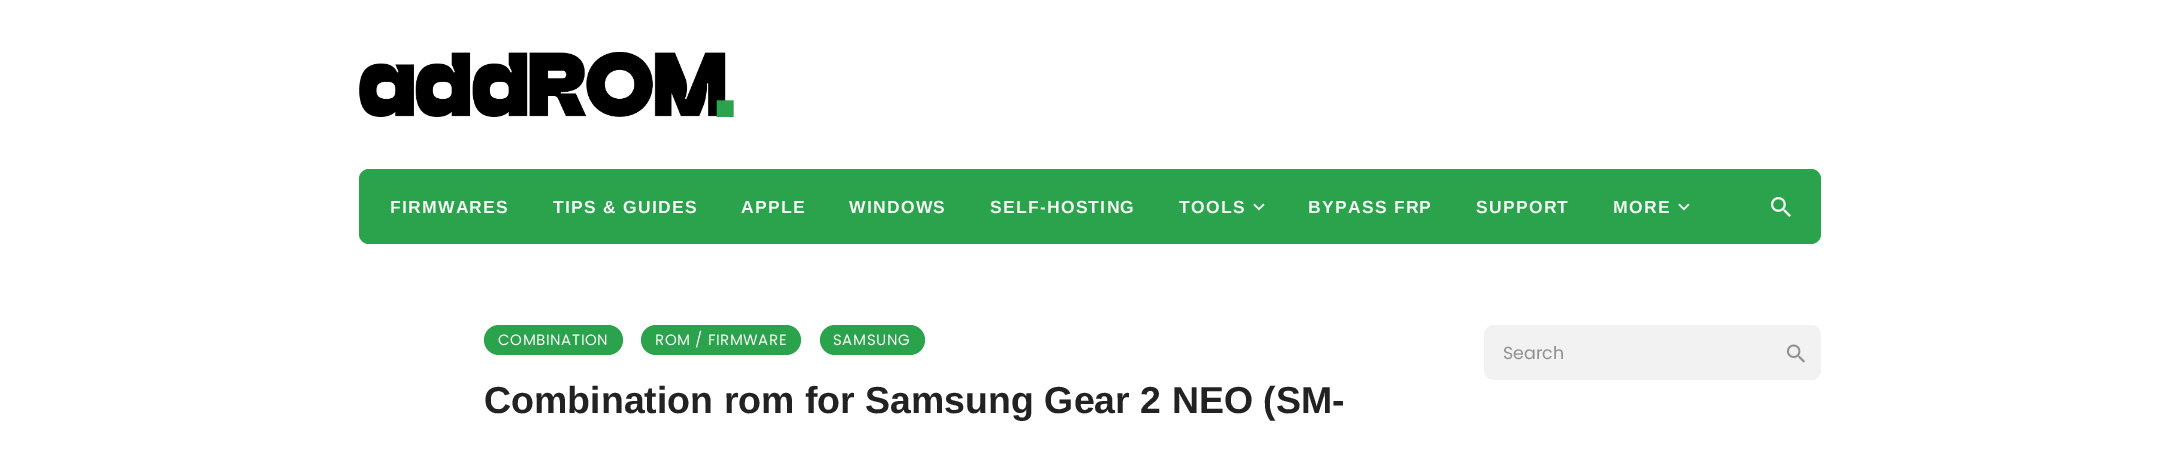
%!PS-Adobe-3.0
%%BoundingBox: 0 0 2180 457
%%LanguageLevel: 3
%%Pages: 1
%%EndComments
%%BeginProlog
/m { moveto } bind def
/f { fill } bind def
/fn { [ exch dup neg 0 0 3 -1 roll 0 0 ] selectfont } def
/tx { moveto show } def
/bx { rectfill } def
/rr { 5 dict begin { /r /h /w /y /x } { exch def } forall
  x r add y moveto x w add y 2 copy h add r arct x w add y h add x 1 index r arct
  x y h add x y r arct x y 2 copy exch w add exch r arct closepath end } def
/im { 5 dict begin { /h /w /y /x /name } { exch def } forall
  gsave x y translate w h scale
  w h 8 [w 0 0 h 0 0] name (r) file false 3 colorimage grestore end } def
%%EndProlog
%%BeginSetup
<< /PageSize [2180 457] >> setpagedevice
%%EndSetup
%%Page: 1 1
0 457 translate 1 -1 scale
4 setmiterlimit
1 setgray
0 0 2180 457 bx
(image0.raw) 358 52 376 65 im
0.169 0.635 0.298 setrgbcolor
359 169 1462 75 10 rr f
/LiberationSans-Bold 17.5 fn
0.957 0.98 0.965 setrgbcolor
390 213 m 1.25 0 (FIRMWARES) ashow
553 213 m 1.25 0 (TIPS & GUIDES) ashow
741 213 m 1.25 0 (APPLE) ashow
849 213 m 1.25 0 (WINDOWS) ashow
990 213 m 1.25 0 (SELF-HOSTING) ashow
1179 213 m 1.25 0 (TOOLS) ashow
(image1.raw) 1253 203 12 8 im
1308 213 m 1.25 0 (BYPASS FRP) ashow
1476 213 m 1.25 0 (SUPPORT) ashow
1613 213 m 1.25 0 (MORE) ashow
(image1.raw) 1678 203 12 8 im
(image2.raw) 1770 197 21 20 im
0.169 0.635 0.298 setrgbcolor
484 325 139 30 15 rr f
/Poppins-Regular 15 fn
1 setgray
498 345 m 0.6 0 (COMBINATION) ashow
0.169 0.635 0.298 setrgbcolor
641 325 160 30 15 rr f
1 setgray
655 345 m 0.6 0 (ROM / FIRMWARE) ashow
0.169 0.635 0.298 setrgbcolor
820 325 105 30 15 rr f
1 setgray
833 345 m 0.6 0 (SAMSUNG) ashow
/LiberationSans-Bold 37.5 fn
0.133 setgray
(Combination rom for Samsung Gear 2 NEO \(SM-) 484 413 tx
0.949 setgray
1484 325 337 55 10 rr f
/Poppins-Regular 17.5 fn
0.569 setgray
(Search) 1503 359 tx
(image3.raw) 1786 344 19 19 im
showpage
%%EOF
